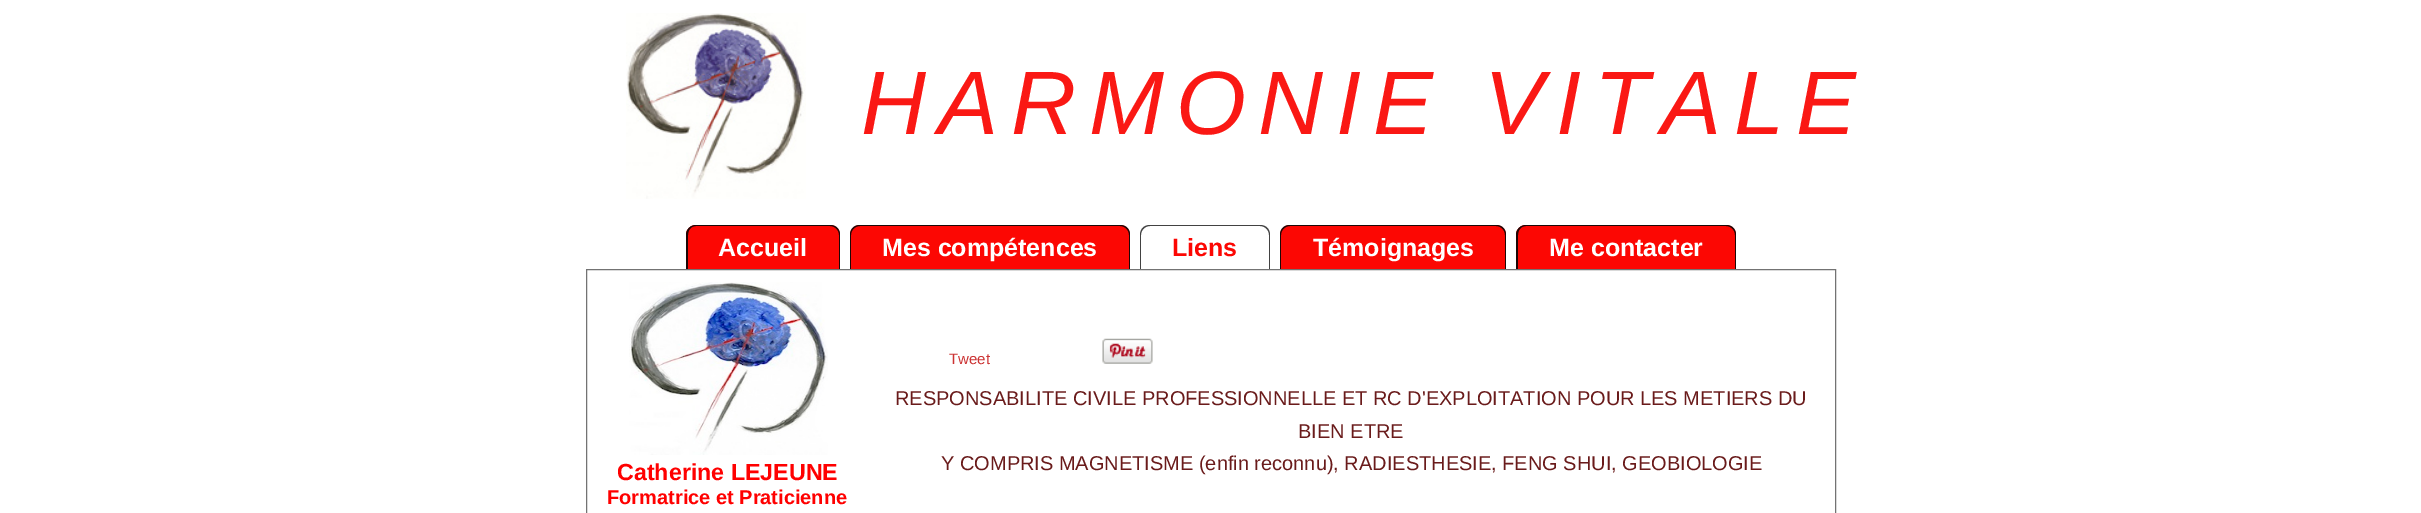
%!PS-Adobe-3.0
%%BoundingBox: 0 0 2421 513
%%LanguageLevel: 3
%%Pages: 1
%%EndComments
%%BeginProlog
/m { moveto } bind def
/l { lineto } bind def
/c { curveto } bind def
/h { closepath } bind def
/f { fill } bind def
/fn { [ exch dup neg 0 0 3 -1 roll 0 0 ] selectfont } def
/tx { moveto show } def
/bx { rectfill } def
/im { 5 dict begin { /h /w /y /x /name } { exch def } forall
  gsave x y translate w h scale
  w h 8 [w 0 0 h 0 0] name (r) file false 3 colorimage grestore end } def
%%EndProlog
%%BeginSetup
<< /PageSize [2421 513] >> setpagedevice
%%EndSetup
%%Page: 1 1
0 513 translate 1 -1 scale
4 setmiterlimit
1 setgray
0 0 2421 513 bx
(image0.raw) 626 13 180 186 im
/LiberationSans-Italic 90 fn
0.98 0.094 0.078 setrgbcolor
861 134 m 12.5 0 (HARMONIE VITALE) ashow
0.988 0.027 0.012 setrgbcolor
696 225 m 830 225 l 835.5 225 840 229.5 840 235 c 840 269 l 686 269 l 686 235 l 686 229.5 690.5 225 696 225 c h f
0.114 0.027 0.027 setrgbcolor
696 225 m 830 225 l 836 225 840 229 840 235 c 840 269 l 686 269 l 686 235 l 686 229 691 225 696 225 c h 696 226 m 830 226 l 835 226 839 230 839 235 c 839 269 l 688 269 l 688 235 l 688 230 691 226 696 226 c h eofill
/LiberationSans-Bold 25 fn
1 setgray
(Accueil) 718 256 tx
0.988 0.027 0.012 setrgbcolor
860 225 m 1120 225 l 1125.5 225 1130 229.5 1130 235 c 1130 269 l 850 269 l 850 235 l 850 229.5 854.5 225 860 225 c h f
0.114 0.027 0.027 setrgbcolor
860 225 m 1120 225 l 1126 225 1130 229 1130 235 c 1130 269 l 850 269 l 850 235 l 850 229 854 225 860 225 c h 860 226 m 1120 226 l 1125 226 1129 230 1129 235 c 1129 269 l 851 269 l 851 235 l 851 230 855 226 860 226 c h eofill
1 setgray
(Mes compétences) 882 256 tx
0.259 setgray
1150 225 m 1260 225 l 1266 225 1270 229 1270 235 c 1270 269 l 1140 269 l 1140 235 l 1140 229 1144 225 1150 225 c h 1150 226 m 1260 226 l 1265 226 1269 230 1269 235 c 1269 269 l 1141 269 l 1141 235 l 1141 230 1145 226 1150 226 c h eofill
0.988 0.027 0.012 setrgbcolor
(Liens) 1172 256 tx
1290 225 m 1496 225 l 1501.5 225 1506 229.5 1506 235 c 1506 269 l 1280 269 l 1280 235 l 1280 229.5 1284.5 225 1290 225 c h f
0.114 0.027 0.027 setrgbcolor
1290 225 m 1496 225 l 1502 225 1506 229 1506 235 c 1506 269 l 1280 269 l 1280 235 l 1280 229 1284 225 1290 225 c h 1290 226 m 1496 226 l 1501 226 1505 230 1505 235 c 1505 269 l 1281 269 l 1281 235 l 1281 230 1285 226 1290 226 c h eofill
1 setgray
(Témoignages) 1313 256 tx
0.988 0.027 0.012 setrgbcolor
1526 225 m 1726 225 l 1731.5 225 1736 229.5 1736 235 c 1736 269 l 1516 269 l 1516 235 l 1516 229.5 1520.5 225 1526 225 c h f
0.114 0.027 0.027 setrgbcolor
1526 225 m 1726 225 l 1732 225 1736 229 1736 235 c 1736 269 l 1516 269 l 1516 235 l 1516 229 1521 225 1526 225 c h 1526 226 m 1726 226 l 1731 226 1735 230 1735 235 c 1735 269 l 1518 269 l 1518 235 l 1518 230 1521 226 1526 226 c h eofill
1 setgray
(Me contacter) 1549 256 tx
0.451 setgray
586.5 269.5 1249 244 rectstroke
/LiberationSans-Regular 15 fn
0.8 0.2 0.2 setrgbcolor
(Tweet) 949 364 tx
(image1.raw) 1102 338 51 26 im
/LiberationSans-Regular 20 fn
0.416 0.106 0.106 setrgbcolor
(RESPONSABILITE CIVILE PROFESSIONNELLE ET RC D'EXPLOITATION POUR LES METIERS DU) 895 405 tx
(BIEN ETRE) 1298 438 tx
(Y COMPRIS MAGNETISME \(enfin reconnu\), RADIESTHESIE, FENG SHUI, GEOBIOLOGIE) 941 470 tx
(image2.raw) 629 282 199 173 im
/LiberationSans-Bold 23.25 fn
1 0 0 setrgbcolor
(Catherine LEJEUNE) 617 480 tx
/LiberationSans-Bold 20 fn
(Formatrice et Praticienne) 607 504 tx
showpage
%%EOF
